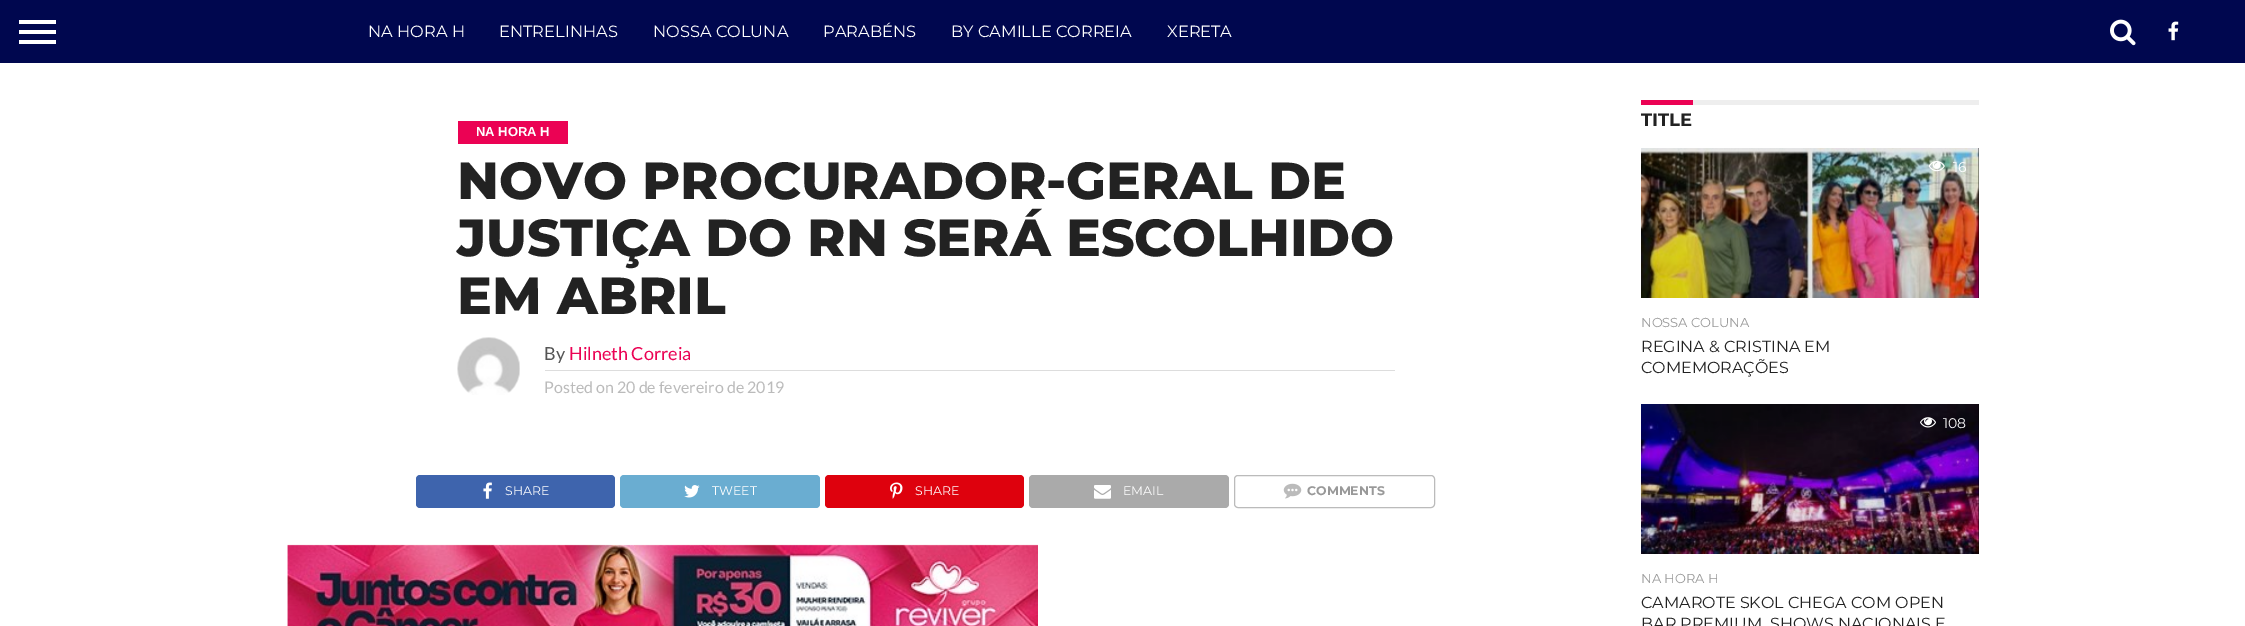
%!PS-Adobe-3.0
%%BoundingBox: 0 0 2245 626
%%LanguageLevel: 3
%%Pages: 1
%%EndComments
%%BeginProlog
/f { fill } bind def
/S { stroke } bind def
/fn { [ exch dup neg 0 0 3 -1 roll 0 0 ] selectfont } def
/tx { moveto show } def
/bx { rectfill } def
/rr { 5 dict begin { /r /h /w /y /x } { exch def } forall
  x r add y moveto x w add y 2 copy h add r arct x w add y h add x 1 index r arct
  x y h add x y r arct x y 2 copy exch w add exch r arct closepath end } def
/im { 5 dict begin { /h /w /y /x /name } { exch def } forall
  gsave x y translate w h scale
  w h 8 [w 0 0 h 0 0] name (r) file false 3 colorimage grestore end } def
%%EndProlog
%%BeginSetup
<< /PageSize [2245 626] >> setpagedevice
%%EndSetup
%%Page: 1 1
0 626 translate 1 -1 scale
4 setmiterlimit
1 setgray
0 0 2245 626 bx
0 0.027 0.31 setrgbcolor
0 0 2245 63 bx
1 setgray
19 20 37 4 bx
19 30 37 4 bx
19 40 37 4 bx
/Montserrat-Regular 16.25 fn
(NA HORA H) 368 37 tx
(ENTRELINHAS) 499 37 tx
(NOSSA COLUNA) 653 37 tx
(PARABÉNS) 823 37 tx
(BY CAMILLE CORREIA) 951 37 tx
(XERETA) 1167 37 tx
(image0.raw) 2110 19 26 27 im
(image1.raw) 2168 21 11 20 im
0.922 0.008 0.329 setrgbcolor
458 121 110 23 bx
/LiberationSans-Bold 13 fn
1 setgray
(NA HORA H) 476 136 tx
/Montserrat-ExtraBold 52 fn
0.133 setgray
(NOVO PROCURADOR-GERAL DE) 457 199 tx
(JUSTIÇA DO RN SERÁ ESCOLHIDO) 457 256 tx
(EM ABRIL) 457 314 tx
(image2.raw) 457 337 63 58 im
0.867 setgray
545 370 850 1 bx
/Lato-Regular 18 fn
0.333 setgray
(By) 544 360 tx
0.922 0.008 0.329 setrgbcolor
(Hilneth Correia) 569 360 tx
/Lato-Regular 16 fn
0.733 setgray
(Posted on 20 de fevereiro de 2019) 544 393 tx
0.243 0.392 0.678 setrgbcolor
416 475 199 33 4 rr f
(image3.raw) 483 482 9 17 im
/Montserrat-Regular 12.5 fn
1 setgray
(SHARE) 505 495 tx
0.416 0.678 0.82 setrgbcolor
620 475 200 33 4 rr f
(image4.raw) 684 485 16 13 im
1 setgray
(TWEET) 712 495 tx
0.871 0.004 0.051 setrgbcolor
825 475 199 33 4 rr f
(image5.raw) 890 482 13 17 im
1 setgray
(SHARE) 915 495 tx
0.667 setgray
1029 475 200 33 4 rr f
(image6.raw) 1094 485 17 14 im
1 setgray
(EMAIL) 1123 495 tx
0.733 setgray
1234.5 475.5 200 32 3.5 rr S
(image7.raw) 1283 483 19 16 im
/Montserrat-Bold 12.5 fn
0.6 setgray
(COMMENTS) 1307 495 tx
(image8.raw) 287 544 751 82 im
0.933 setgray
1693 100 286 5 bx
0.922 0.008 0.329 setrgbcolor
1641 100 52 5 bx
/Montserrat-Bold 18 fn
0.133 setgray
(TITLE) 1641 126 tx
0 setgray
1641 148 338 150 bx
(image9.raw) 1641 148 338 150 im
(image10.raw) 1928 161 17 11 im
/Montserrat-Regular 14 fn
1 setgray
(16) 1953 172 tx
/Montserrat-Regular 13 fn
0.6 setgray
(NOSSA COLUNA) 1641 327 tx
/Montserrat-Regular 16 fn
0.133 setgray
(REGINA & CRISTINA EM) 1641 352 tx
(COMEMORAÇÕES) 1641 373 tx
0 setgray
1641 404 338 150 bx
(image11.raw) 1641 404 338 150 im
(image12.raw) 1920 417 16 11 im
/Montserrat-Regular 14 fn
1 setgray
(108) 1943 428 tx
/Montserrat-Regular 13 fn
0.6 setgray
(NA HORA H) 1641 583 tx
/Montserrat-Regular 16 fn
0.133 setgray
(CAMAROTE SKOL CHEGA COM OPEN) 1641 608 tx
(BAR PREMIUM, SHOWS NACIONAIS E) 1641 629 tx
showpage
%%EOF
